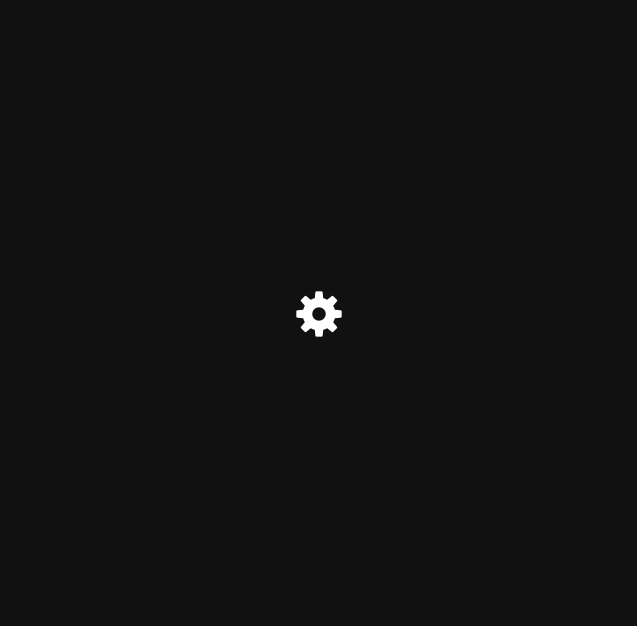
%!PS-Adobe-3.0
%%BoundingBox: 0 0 637 626
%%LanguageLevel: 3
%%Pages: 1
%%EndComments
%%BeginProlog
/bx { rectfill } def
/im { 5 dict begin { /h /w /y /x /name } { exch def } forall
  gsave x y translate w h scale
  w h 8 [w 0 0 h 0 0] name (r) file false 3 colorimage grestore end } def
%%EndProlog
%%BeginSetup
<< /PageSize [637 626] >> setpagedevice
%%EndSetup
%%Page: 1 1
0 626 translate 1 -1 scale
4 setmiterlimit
0.067 setgray
0 0 637 626 bx
(image0.raw) 296 291 46 46 im
showpage
%%EOF
